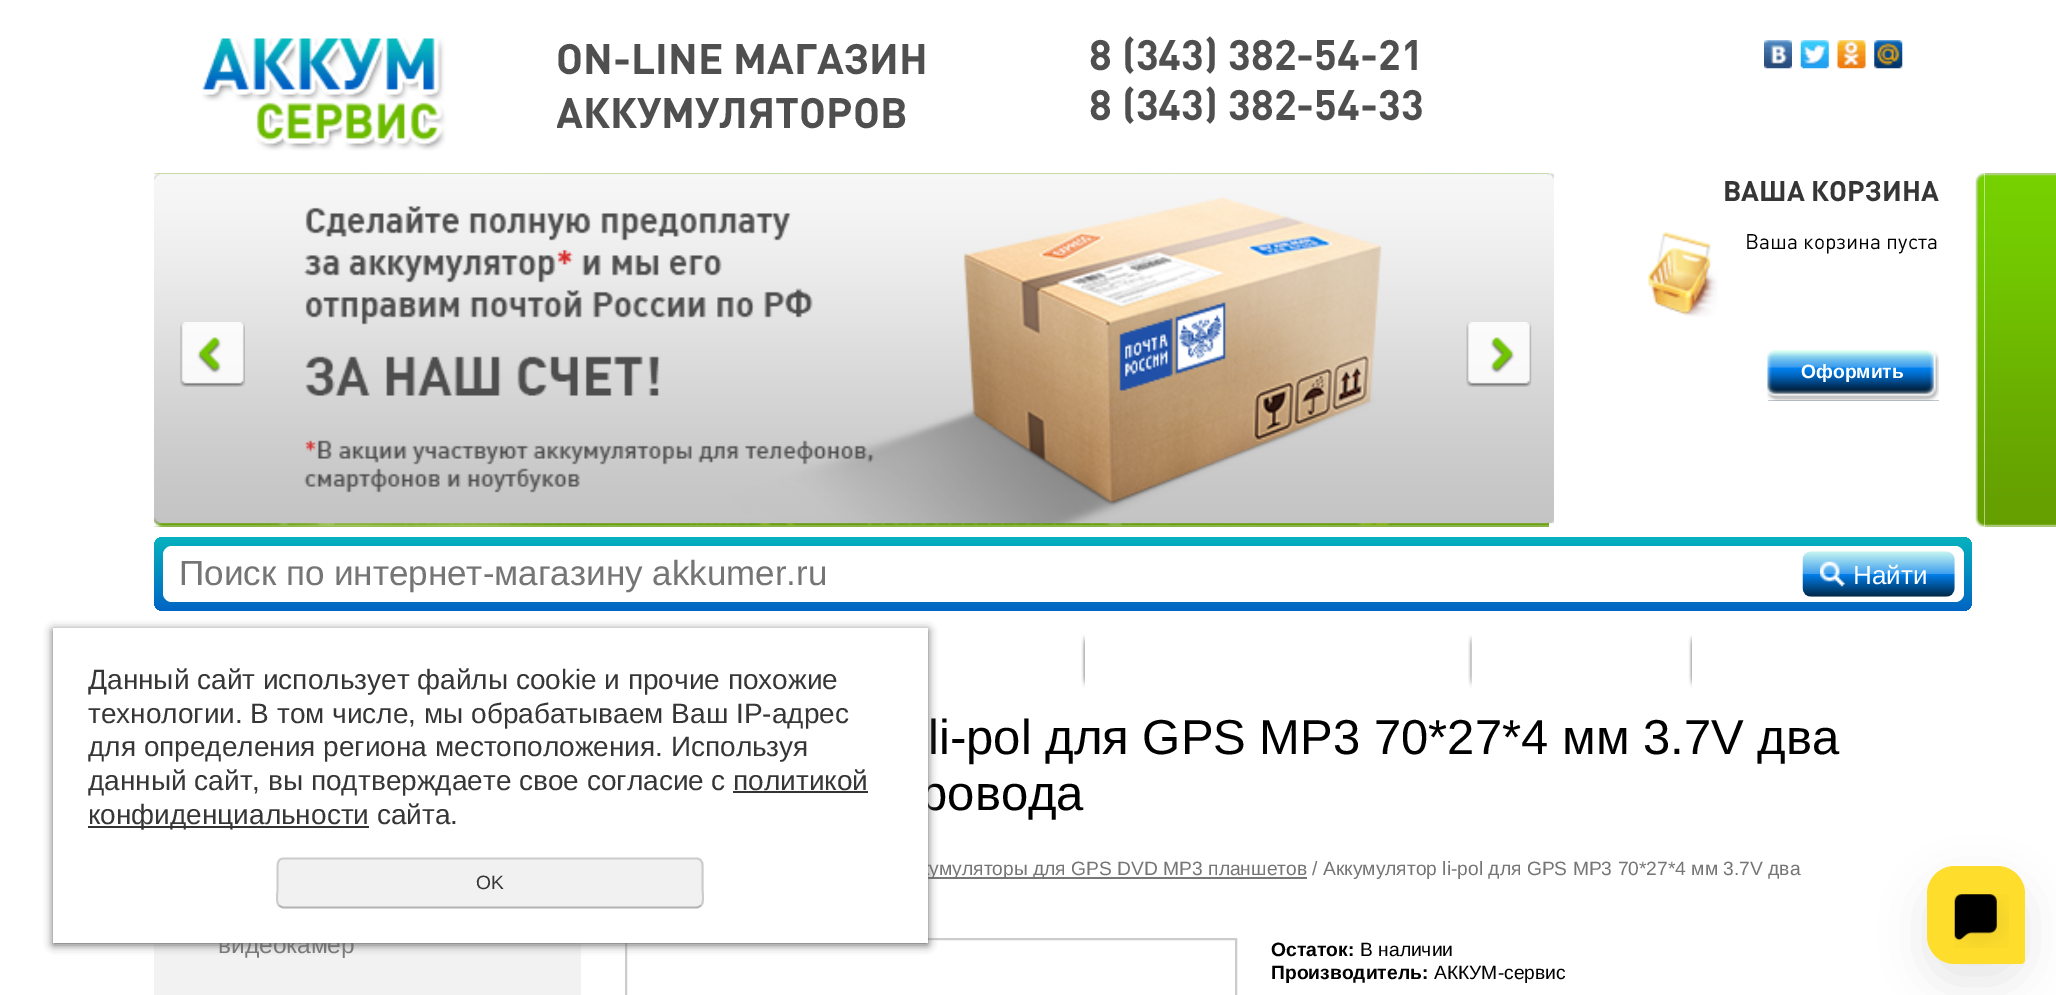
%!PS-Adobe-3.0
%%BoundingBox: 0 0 2056 995
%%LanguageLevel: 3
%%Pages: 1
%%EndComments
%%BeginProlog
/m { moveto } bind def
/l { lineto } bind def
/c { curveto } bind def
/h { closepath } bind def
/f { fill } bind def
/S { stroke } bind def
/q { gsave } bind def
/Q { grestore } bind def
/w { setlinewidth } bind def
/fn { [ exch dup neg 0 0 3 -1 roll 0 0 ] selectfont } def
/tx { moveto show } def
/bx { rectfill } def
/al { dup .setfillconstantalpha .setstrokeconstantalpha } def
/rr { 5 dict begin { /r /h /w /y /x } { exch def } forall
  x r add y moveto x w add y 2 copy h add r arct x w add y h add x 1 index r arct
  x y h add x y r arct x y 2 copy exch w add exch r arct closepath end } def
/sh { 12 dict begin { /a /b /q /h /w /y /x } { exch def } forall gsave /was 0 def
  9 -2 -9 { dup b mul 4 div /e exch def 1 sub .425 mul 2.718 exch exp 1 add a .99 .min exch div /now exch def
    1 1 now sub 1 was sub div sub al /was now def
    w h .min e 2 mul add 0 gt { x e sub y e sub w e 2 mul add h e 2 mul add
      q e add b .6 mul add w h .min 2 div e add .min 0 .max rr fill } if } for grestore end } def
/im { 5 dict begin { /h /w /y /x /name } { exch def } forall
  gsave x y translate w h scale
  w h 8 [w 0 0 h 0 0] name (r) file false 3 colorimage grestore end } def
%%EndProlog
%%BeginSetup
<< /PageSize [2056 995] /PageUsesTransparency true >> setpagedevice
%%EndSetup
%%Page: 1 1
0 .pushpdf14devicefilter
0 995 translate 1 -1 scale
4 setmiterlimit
1 setgray
0 0 2056 995 bx
(image0.raw) 202 38 244 113 im
/DIN-Bold 42 fn
0.31 setgray
(ON-LINE МАГАЗИН) 556 74 tx
q
557 30 910 108 rectclip
(АККУМУЛЯТОРОВ) 556 128 tx
Q
(8 \(343\) 382-54-21) 1089 70 tx
(8 \(343\) 382-54-33) 1089 120 tx
(image1.raw) 1764 40 28 29 im
(image2.raw) 1800 40 29 29 im
(image3.raw) 1837 40 29 29 im
(image4.raw) 1874 40 29 29 im
(image13.raw) 1029 173 1027 354 im
(image5.raw) 154 173 1395 354 im
1 setgray
1549 173 436 354 bx
(image6.raw) 154 173 1400 351 im
(image7.raw) 180 322 65 65 im
(image8.raw) 1466 322 66 65 im
(image9.raw) 1975 173 10 354 im
/DIN-Bold 28 fn
0.212 setgray
(ВАША КОРЗИНА) 1723 201 tx
(image10.raw) 1648 232 70 85 im
/DIN-Regular 21 fn
0 setgray
(Ваша корзина пуста) 1745 249 tx
(image11.raw) 1767 350 172 51 im
/LiberationSans-Bold 19.25 fn
1 setgray
(Оформить) 1801 378 tx
q 154 537 1818 74 9 rr clip newpath
<< /ShadingType 2 /ColorSpace /DeviceRGB /Coords [1063 537 1063 611] /Extend [true true] /Function << /FunctionType 2 /Domain [0 1] /C0 [0.024 0.698 0.745] /C1 [0 0.396 0.769] /N 1 >> >> shfill Q
163 546 1801 56 9 rr f
/LiberationSans-Regular 35 fn
0.459 setgray
(Поиск по интернет-магазину akkumer.ru) 179 585 tx
(image12.raw) 1802 551 153 46 im
/LiberationSans-Regular 26 fn
1 setgray
(Найти) 1853 584 tx
0.949 setgray
154 943 427 52 bx
/LiberationSans-Regular 24.5 fn
0.486 setgray
(видеокамер) 218 953 tx
(image14.raw) 1081 635 4 53 im
(image15.raw) 1468 635 4 53 im
(image16.raw) 1688 635 4 53 im
/LiberationSans-Regular 49 fn
0 setgray
(li-pol для GPS MP3 70*27*4 мм 3.7V два) 928 754 tx
(ровода) 920 810 tx
0.467 0.471 0.467 setrgbcolor
928 877 379 2 bx
/LiberationSans-Regular 19.25 fn
0.459 setgray
(кумуляторы для GPS DVD MP3 планшетов / Аккумулятор li-pol для GPS MP3 70*27*4 мм 3.7V два) 921 875 tx
0.8 setgray
2 w
626 939 610 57 rectstroke
/LiberationSans-Bold 19.25 fn
0 setgray
(Остаток:) 1271 956 tx
/LiberationSans-Regular 19.25 fn
(В наличии) 1360 956 tx
/LiberationSans-Bold 19.25 fn
(Производитель:) 1271 979 tx
/LiberationSans-Regular 19.25 fn
(АККУМ-сервис) 1434 979 tx
0.4 setgray
53 630 875 315 0 4.5 1 sh
1 setgray
53 628 875 315 bx
/LiberationSans-Regular 28 fn
0.212 setgray
(Данный сайт использует файлы cookie и прочие похожие) 88 689 tx
(технологии. В том числе, мы обрабатываем Ваш IP-адрес) 88 723 tx
(для определения региона местоположения. Используя) 88 756 tx
(данный сайт, вы подтверждаете свое согласие с политикой) 88 790 tx
0.2 setgray
88 826 281 2 bx
0.212 setgray
(конфиденциальности сайта.) 88 824 tx
0.2 setgray
733 791 135 2 bx
0.945 setgray
277 858 427 50 7 rr f
0.702 setgray
1.8 w
701 905.5 m 699.5 906.5 698 907.5 696.5 907.5 c 283.5 907.5 l 282 907.5 280.5 906.5 279 905.5 c S
0.8 setgray
279 905.5 m 275.5 902 277.5 893 277.5 889 c 277.5 870.5 l 277.5 866 276.5 858.5 283.5 858.5 c 696.5 858.5 l 703.5 858.5 702.5 866 702.5 870.5 c 702.5 889 l 702.5 893 704.5 902 701 905.5 c S
/LiberationSans-Regular 19.25 fn
0.212 setgray
(OK) 476 889 tx
0 setgray
1927 884 98 98 28 22 0.1 sh
1 0.867 0.176 setrgbcolor
1955 866 m 1997 866 l 2012.5 866 2025 878.5 2025 894 c 2025 960 l 2025 962 2023 964 2021 964 c 1955 964 l 1939.5 964 1927 951.5 1927 936 c 1927 894 l 1927 878.5 1939.5 866 1955 866 c h f
(image17.raw) 1954 894 55 54 im
.poppdf14devicefilter showpage
%%EOF
